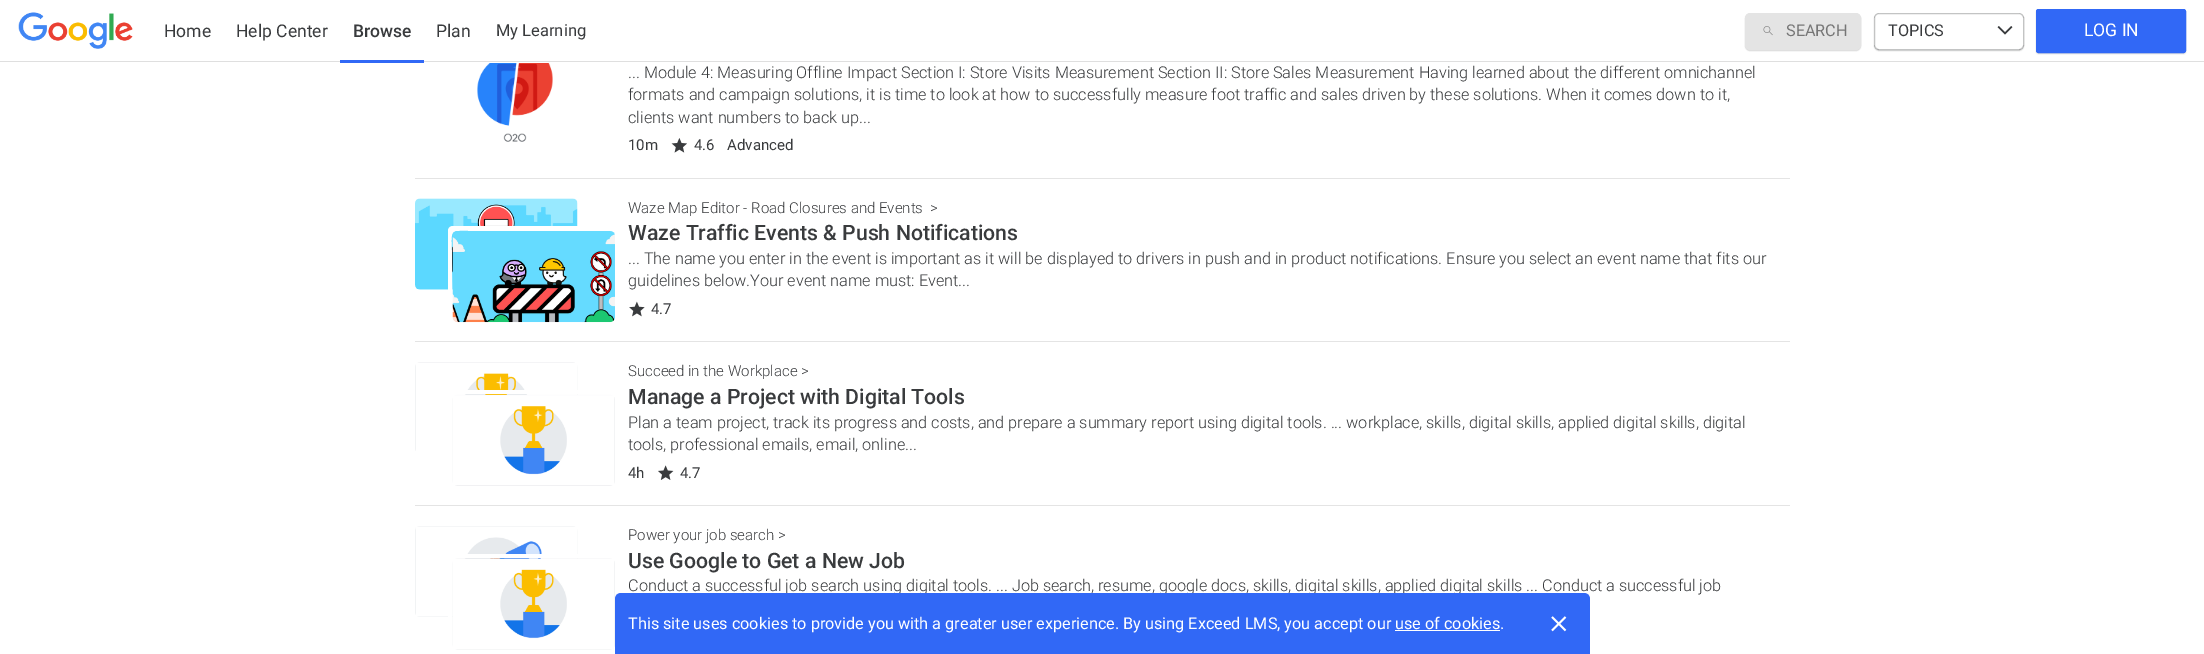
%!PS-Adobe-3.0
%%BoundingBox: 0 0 2204 654
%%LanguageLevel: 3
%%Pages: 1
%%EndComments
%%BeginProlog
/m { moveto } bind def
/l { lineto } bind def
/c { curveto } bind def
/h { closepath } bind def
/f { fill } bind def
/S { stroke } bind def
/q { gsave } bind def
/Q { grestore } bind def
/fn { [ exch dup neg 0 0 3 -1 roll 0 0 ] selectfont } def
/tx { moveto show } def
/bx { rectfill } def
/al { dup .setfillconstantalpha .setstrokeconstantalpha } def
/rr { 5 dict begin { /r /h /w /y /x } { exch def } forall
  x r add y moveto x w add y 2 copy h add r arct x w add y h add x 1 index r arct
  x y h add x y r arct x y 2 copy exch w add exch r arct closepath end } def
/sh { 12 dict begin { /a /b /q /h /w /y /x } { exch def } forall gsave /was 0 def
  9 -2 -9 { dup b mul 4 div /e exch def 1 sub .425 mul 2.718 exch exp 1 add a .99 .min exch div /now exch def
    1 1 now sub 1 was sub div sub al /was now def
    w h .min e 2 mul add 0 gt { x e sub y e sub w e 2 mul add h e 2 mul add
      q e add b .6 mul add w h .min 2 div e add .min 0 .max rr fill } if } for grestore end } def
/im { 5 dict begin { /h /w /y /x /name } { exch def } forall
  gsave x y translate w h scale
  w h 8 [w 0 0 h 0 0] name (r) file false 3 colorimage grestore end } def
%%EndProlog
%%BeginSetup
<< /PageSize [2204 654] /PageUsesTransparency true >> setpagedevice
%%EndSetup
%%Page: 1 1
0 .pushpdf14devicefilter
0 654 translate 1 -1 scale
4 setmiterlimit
1 setgray
0 0 2204 654 bx
0.875 setgray
0 61 2204 1 bx
(image0.raw) 18 12 115 37 im
/Roboto-Regular 17.5 fn
0.224 0.231 0.239 setrgbcolor
(Home) 164 37 tx
(Help Center) 236 37 tx
0.192 0.408 0.965 setrgbcolor
340 60 84 3 bx
/Roboto-Medium 17.5 fn
0.224 0.231 0.239 setrgbcolor
(Browse) 353 37 tx
/Roboto-Regular 17.5 fn
(Plan) 436 37 tx
/Roboto-Regular 16.5 fn
(My Learning) 496 36 tx
0 setgray
1745 14 116 37 5 0.5 0.15 sh
0.894 setgray
1745.5 13.5 115 36 4.5 rr q f Q
S
(image1.raw) 1763 26 10 10 im
/Roboto-Regular 16.25 fn
0.463 setgray
(SEARCH) 1786 36 tx
q
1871 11 m 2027 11 l 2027 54 l 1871 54 l h 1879 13 m 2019 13 l 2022 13 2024 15 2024 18 c 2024 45 l 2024 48 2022 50 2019 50 c 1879 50 l 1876 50 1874 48 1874 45 c 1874 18 l 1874 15 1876 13 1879 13 c h eoclip newpath
0 setgray
1874 14 150 37 5 0.5 0.15 sh
Q
0.3 al
0.224 0.231 0.239 setrgbcolor
1874.5 13.5 149 36 4.5 rr S
1 al
(TOPICS) 1888 36 tx
(image2.raw) 1997 26 16 9 im
0 setgray
2036 10 150 44 2.5 0.5 0.15 sh
0.192 0.408 0.965 setrgbcolor
2036.5 9.5 149 43 2 rr q f Q
S
/Roboto-Regular 17.5 fn
1 setgray
(LOG IN) 2084 36 tx
0.894 setgray
415 178 1375 1 bx
(image3.raw) 477 63 76 79 im
/Roboto-Light 16.25 fn
0.224 0.231 0.239 setrgbcolor
(... Module 4: Measuring Offline Impact Section I: Store Visits Measurement Section II: Store Sales Measurement Having learned about the different omnichannel) 628 78 tx
(formats and campaign solutions, it is time to look at how to successfully measure foot traffic and sales driven by these solutions. When it comes down to it,) 628 100 tx
(clients want numbers to back up...) 628 123 tx
/Roboto-Regular 15 fn
(10m) 628 150 tx
(image4.raw) 671 138 16 15 im
(4.6) 694 150 tx
(Advanced) 727 150 tx
0.894 setgray
415 341 1375 1 bx
(image5.raw) 415 198 163 92 im
1 setgray
453 226 m 450 226 448 228 448 231 c 448 313 l 448 316 450 318 453 318 c 452 263 l 452 225 445 231 483 231 c 610 231 l 610 228 608 226 605 226 c h f
(image6.raw) 452 231 163 92 im
/Roboto-Light 15 fn
0.224 0.231 0.239 setrgbcolor
(Waze Map Editor - Road Closures and Events) 628 213 tx
(>) 930 213 tx
/Roboto-Medium 21.25 fn
(Waze Traffic Events & Push Notifications) 628 240 tx
/Roboto-Light 16.25 fn
(... The name you enter in the event is important as it will be displayed to drivers in push and in product notifications. Ensure you select an event name that fits our) 628 264 tx
(guidelines below.Your event name must: Event...) 628 286 tx
(image7.raw) 629 301 16 16 im
/Roboto-Regular 15 fn
(4.7) 651 314 tx
0.894 setgray
415 505 1375 1 bx
(image8.raw) 415 362 163 89 im
1 setgray
453 390 m 450 390 448 392 448 395 c 448 476 l 448 479 450 481 453 481 c 452 413 l 452 410 449 394 458 394 c 610 394 l 610 392 608 390 605 390 c h f
(image9.raw) 452 394 163 92 im
/Roboto-Light 15 fn
0.224 0.231 0.239 setrgbcolor
(Succeed in the Workplace >) 628 376 tx
/Roboto-Medium 21.25 fn
(Manage a Project with Digital Tools) 628 404 tx
/Roboto-Light 16.25 fn
(Plan a team project, track its progress and costs, and prepare a summary report using digital tools. ... workplace, skills, digital skills, applied digital skills, digital) 628 428 tx
(tools, professional emails, email, online...) 628 450 tx
/Roboto-Regular 15 fn
(4h) 628 478 tx
(image10.raw) 658 465 16 15 im
(4.7) 680 478 tx
(image11.raw) 415 526 163 91 im
1 setgray
453 554 m 450 554 448 556 448 559 c 448 640 l 448 643 450 645 453 645 c 452 590 l 452 553 445 558 483 558 c 610 558 l 610 556 607 554 605 554 c h f
(image12.raw) 452 558 163 92 im
/Roboto-Light 15 fn
0.224 0.231 0.239 setrgbcolor
(Power your job search >) 628 540 tx
/Roboto-Medium 21.25 fn
(Use Google to Get a New Job) 628 568 tx
/Roboto-Light 16.25 fn
(Conduct a successful job search using digital tools. ... Job search, resume, google docs, skills, digital skills, applied digital skills ... Conduct a successful job) 628 591 tx
0.192 0.408 0.965 setrgbcolor
621 593 m 1584 593 l 1587.5 593 1590 595.5 1590 599 c 1590 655 l 615 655 l 615 599 l 615 595.5 617.5 593 621 593 c h f
/Roboto-Regular 16.25 fn
1 setgray
(This site uses cookies to provide you with a greater user experience. By using Exceed LMS, you accept our use of cookies.) 628 629 tx
1395 630 105 1 bx
(image13.raw) 1551 616 16 16 im
.poppdf14devicefilter showpage
%%EOF
